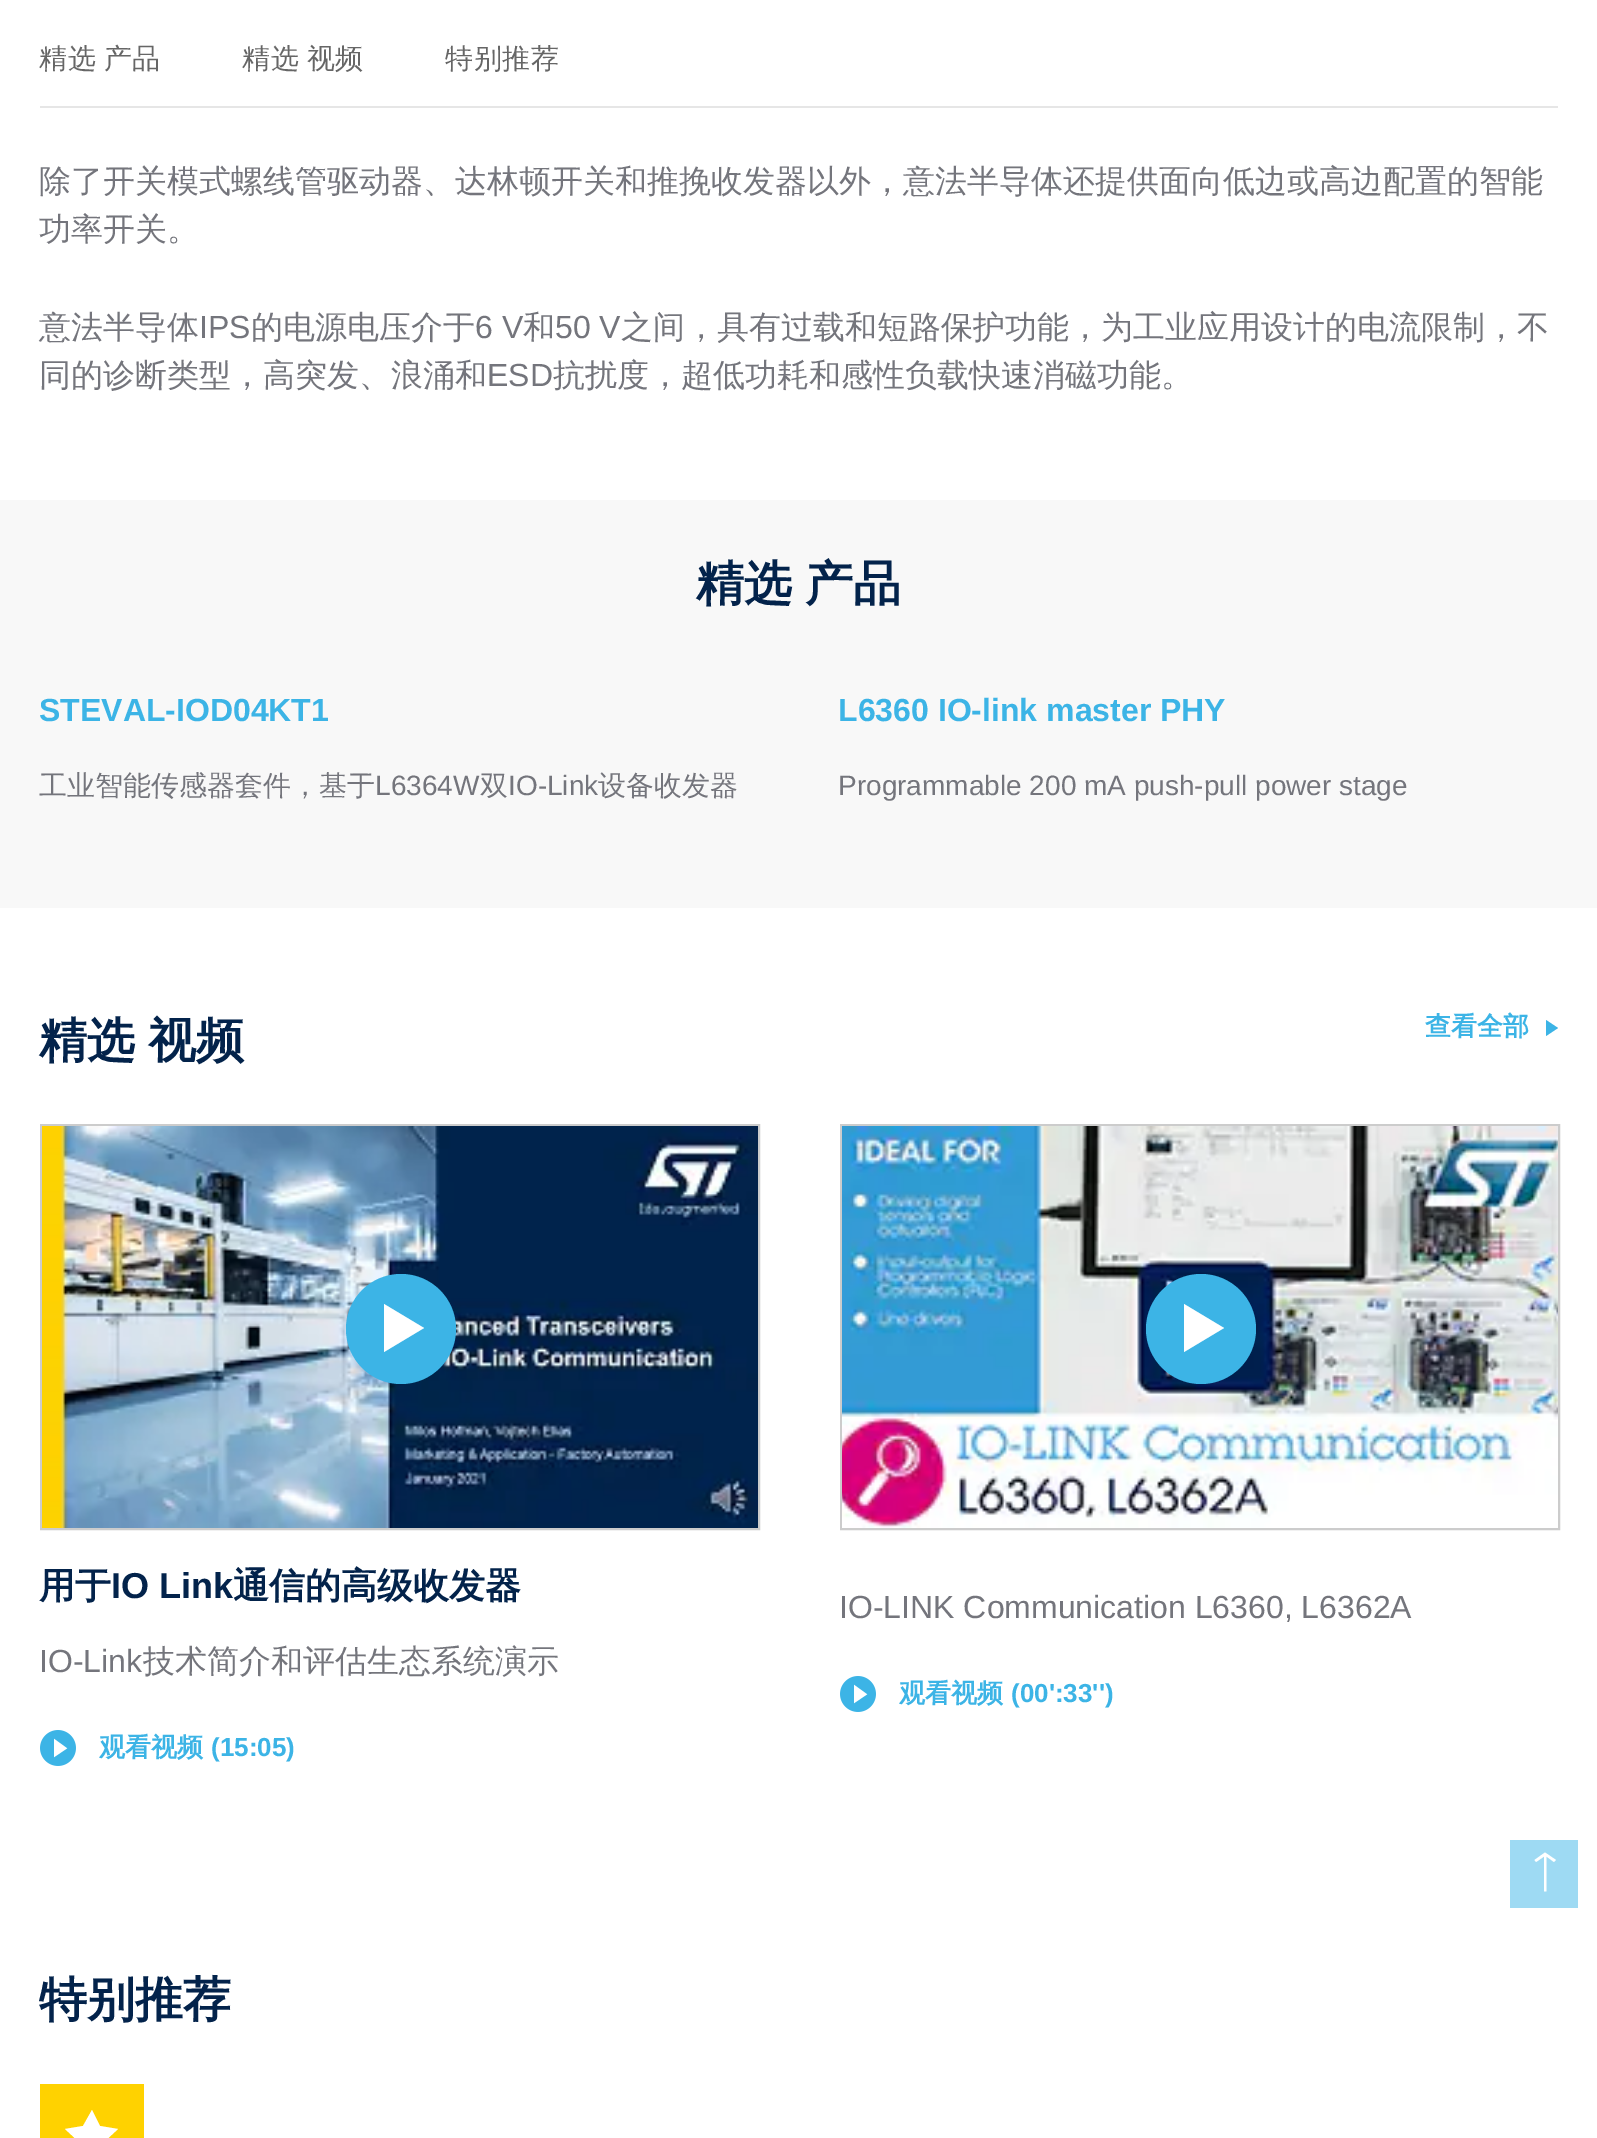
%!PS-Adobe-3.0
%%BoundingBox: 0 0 1597 2138
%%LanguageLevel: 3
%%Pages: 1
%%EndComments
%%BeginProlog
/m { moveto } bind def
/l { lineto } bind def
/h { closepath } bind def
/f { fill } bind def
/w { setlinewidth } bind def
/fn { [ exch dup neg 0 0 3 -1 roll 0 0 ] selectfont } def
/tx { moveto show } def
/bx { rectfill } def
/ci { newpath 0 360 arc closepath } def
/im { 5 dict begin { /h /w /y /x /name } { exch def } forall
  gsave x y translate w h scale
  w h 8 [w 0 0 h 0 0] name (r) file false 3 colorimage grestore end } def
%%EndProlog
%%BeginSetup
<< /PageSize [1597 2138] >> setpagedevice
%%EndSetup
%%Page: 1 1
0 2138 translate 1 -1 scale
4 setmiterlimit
1 setgray
0 0 1597 2138 bx
0.902 setgray
40 106 1518 2 bx
/WenQuanYiZenHei-Medium 28 fn
0.4 setgray
39 68 m -1 0 32 0.5 0 (精选 产品) awidthshow
242 68 m -1 0 32 0.5 0 (精选 视频) awidthshow
445 68 m 0.5 0 (特别推荐) ashow
/WenQuanYiZenHei-Medium 32 fn
0.455 0.459 0.486 setrgbcolor
(除了开关模式螺线管驱动器、达林顿开关和推挽收发器以外，意法半导体还提供面向低边或高边配置的智能) 39 192 tx
(功率开关。) 39 240 tx
(意法半导体) 39 338 tx
/LiberationSans-Regular 32 fn
(IPS) 199 338 tx
/WenQuanYiZenHei-Medium 32 fn
(的电源电压介于) 251 338 tx
/LiberationSans-Regular 32 fn
(6 V) 475 338 tx
/WenQuanYiZenHei-Medium 32 fn
(和) 523 338 tx
/LiberationSans-Regular 32 fn
(50 V) 555 338 tx
/WenQuanYiZenHei-Medium 32 fn
(之间，具有过载和短路保护功能，为工业应用设计的电流限制，不) 621 338 tx
(同的诊断类型，高突发、浪涌和) 39 386 tx
/LiberationSans-Regular 32 fn
(ESD) 487 386 tx
/WenQuanYiZenHei-Medium 32 fn
(抗扰度，超低功耗和感性负载快速消磁功能。) 553 386 tx
0.973 setgray
0 500 1597 408 bx
/WenQuanYiZenHei-Bold 48 fn
0.012 0.137 0.294 setrgbcolor
696 600 m -1 0 32 (精选 产品) widthshow
/LiberationSans-Bold 32 fn
0.235 0.706 0.902 setrgbcolor
(STEVAL-IOD04KT1) 39 721 tx
/WenQuanYiZenHei-Medium 28 fn
0.455 0.459 0.486 setrgbcolor
(工业智能传感器套件，基于) 39 795 tx
/LiberationSans-Regular 28 fn
(L6364W) 375 795 tx
/WenQuanYiZenHei-Medium 28 fn
(双) 480 795 tx
/LiberationSans-Regular 28 fn
(IO-Link) 508 795 tx
/WenQuanYiZenHei-Medium 28 fn
(设备收发器) 598 795 tx
/LiberationSans-Bold 32 fn
0.235 0.706 0.902 setrgbcolor
(L6360 IO-link master PHY) 838 721 tx
/LiberationSans-Regular 28 fn
0.455 0.459 0.486 setrgbcolor
(Programmable 200 mA push-pull power stage) 838 795 tx
/WenQuanYiZenHei-Bold 48 fn
0.012 0.137 0.294 setrgbcolor
39 1057 m -1 0 32 (精选 视频) widthshow
/WenQuanYiZenHei-Bold 26 fn
0.235 0.706 0.902 setrgbcolor
(查看全部) 1425 1035 tx
1546 1036 m 1546 1020 l 1558 1028 l h f
0.8 setgray
2 w
41 1125 718 404 rectstroke
(image0.raw) 42 1126 716 402 im
0.235 0.706 0.902 setrgbcolor
401 1329 55 ci f
1 setgray
384 1352 m 384 1304 l 424 1328 l h f
/WenQuanYiZenHei-Bold 36 fn
0.012 0.137 0.294 setrgbcolor
(用于) 39 1598 tx
/LiberationSans-Bold 36 fn
(IO Link) 111 1598 tx
/WenQuanYiZenHei-Bold 36 fn
(通信的高级收发器) 233 1598 tx
/LiberationSans-Regular 32 fn
0.455 0.459 0.486 setrgbcolor
(IO-Link) 39 1672 tx
/WenQuanYiZenHei-Medium 32 fn
(技术简介和评估生态系统演示) 143 1672 tx
(image1.raw) 40 1730 36 36 im
/WenQuanYiZenHei-Bold 26 fn
0.235 0.706 0.902 setrgbcolor
(观看视频) 99 1756 tx
/LiberationSans-Bold 26 fn
(\(15:05\)) 211 1756 tx
0.8 setgray
841 1125 718 404 rectstroke
(image2.raw) 842 1126 716 402 im
0.235 0.706 0.902 setrgbcolor
1201 1329 55 ci f
1 setgray
1184 1352 m 1184 1304 l 1224 1328 l h f
/LiberationSans-Regular 32 fn
0.455 0.459 0.486 setrgbcolor
(IO-LINK Communication L6360, L6362A) 839 1618 tx
(image1.raw) 840 1676 36 36 im
/WenQuanYiZenHei-Bold 26 fn
0.235 0.706 0.902 setrgbcolor
(观看视频) 899 1702 tx
/LiberationSans-Bold 26 fn
(\(00':33''\)) 1011 1702 tx
/WenQuanYiZenHei-Bold 48 fn
0.012 0.137 0.294 setrgbcolor
(特别推荐) 39 2016 tx
1 0.824 0 setrgbcolor
40 2084 104 54 bx
1 setgray
75 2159 m 78 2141 l 65 2129 l 83 2126 l 92 2110 l 100 2126 l 118 2129 l 105 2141 l 108 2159 l 92 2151 l h eofill
0.62 0.855 0.953 setrgbcolor
1510 1840 68 68 bx
1 setgray
1556 1860 m 1545 1852.5 l 1534.5 1860 l 1536 1862 l 1544 1856.5 l 1544 1891.5 l 1546.5 1891.5 l 1546.5 1856.5 l 1554 1862 l h f
showpage
%%EOF
